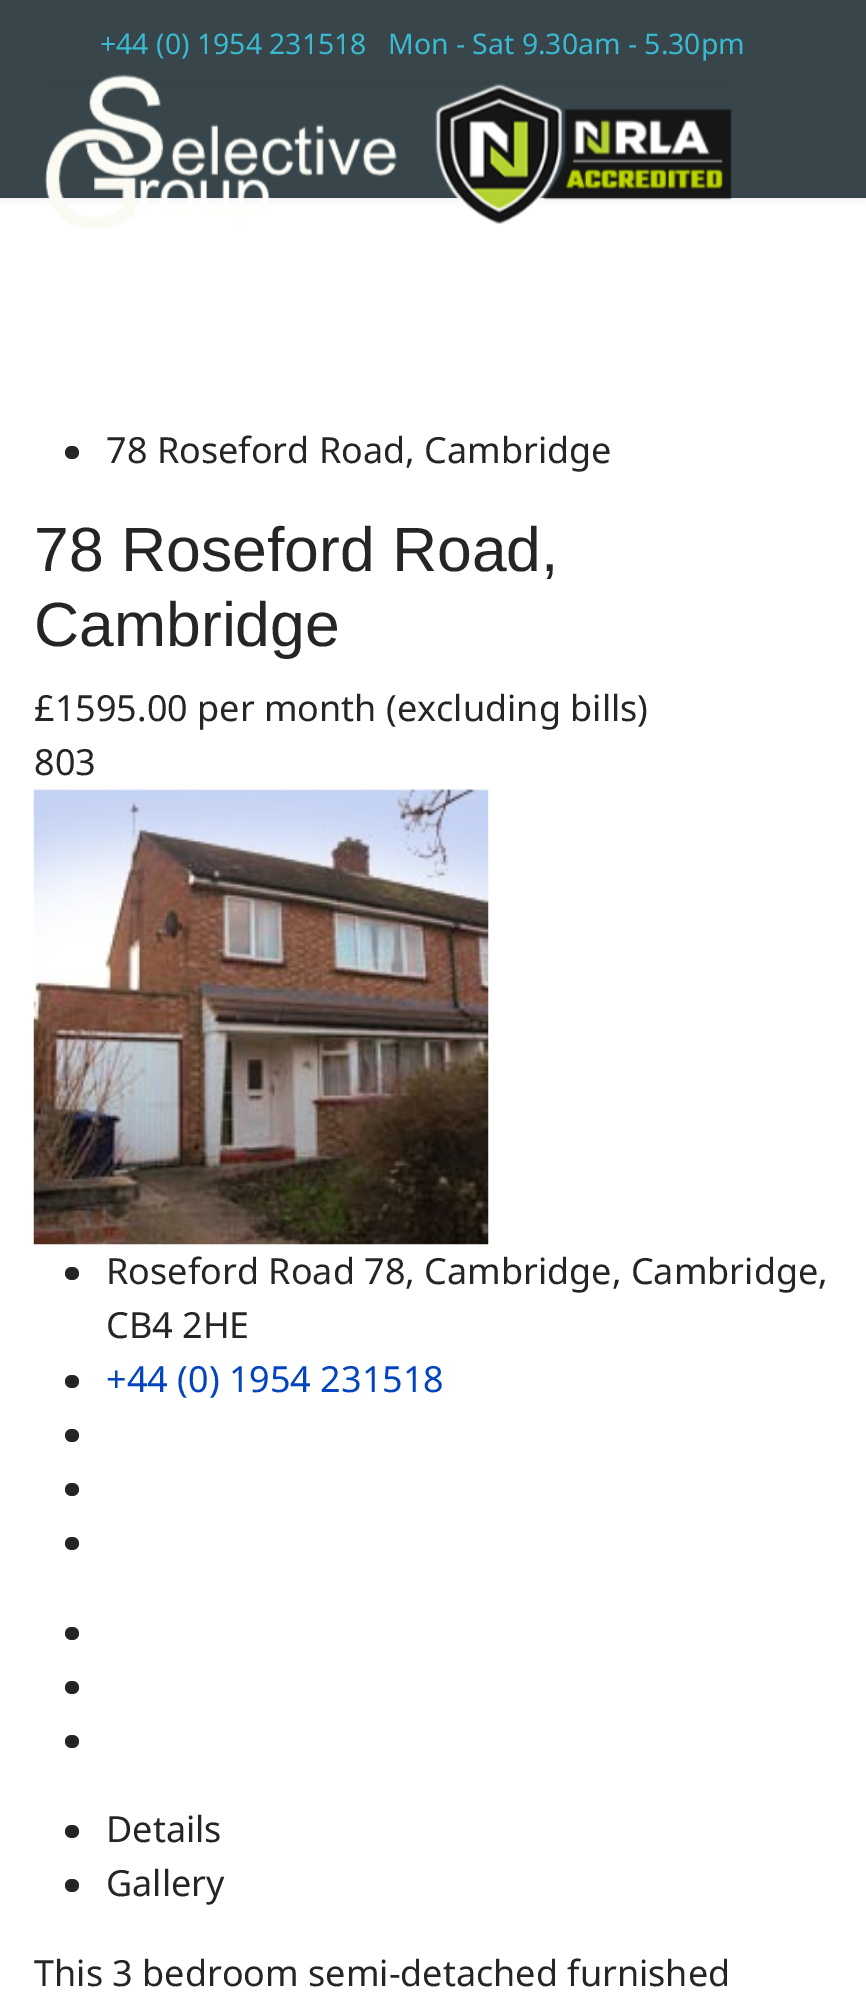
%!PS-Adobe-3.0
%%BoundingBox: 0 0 866 1992
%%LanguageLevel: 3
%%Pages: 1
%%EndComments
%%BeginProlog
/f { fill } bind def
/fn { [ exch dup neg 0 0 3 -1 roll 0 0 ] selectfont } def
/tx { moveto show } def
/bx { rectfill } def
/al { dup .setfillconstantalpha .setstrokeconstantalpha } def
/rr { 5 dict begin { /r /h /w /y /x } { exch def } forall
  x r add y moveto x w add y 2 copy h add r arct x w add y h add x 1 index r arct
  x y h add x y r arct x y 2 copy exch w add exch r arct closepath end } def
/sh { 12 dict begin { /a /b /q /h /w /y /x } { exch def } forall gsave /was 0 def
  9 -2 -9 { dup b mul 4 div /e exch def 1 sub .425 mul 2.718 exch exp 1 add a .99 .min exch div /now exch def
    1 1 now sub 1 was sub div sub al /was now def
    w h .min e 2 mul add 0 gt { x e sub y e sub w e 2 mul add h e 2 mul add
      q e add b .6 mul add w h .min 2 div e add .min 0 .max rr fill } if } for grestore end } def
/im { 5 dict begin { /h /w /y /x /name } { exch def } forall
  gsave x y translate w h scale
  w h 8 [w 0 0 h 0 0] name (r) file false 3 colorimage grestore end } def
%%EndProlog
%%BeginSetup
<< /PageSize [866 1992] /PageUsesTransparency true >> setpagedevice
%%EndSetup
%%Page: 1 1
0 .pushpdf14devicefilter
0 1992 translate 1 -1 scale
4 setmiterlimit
1 setgray
0 0 866 1992 bx
0.22 0.275 0.294 setrgbcolor
0 0 866 86 bx
/NotoSans-Regular 28.4 fn
0.227 0.729 0.82 setrgbcolor
(+44 \(0\) 1954 231518) 100 54 tx
(Mon - Sat 9.30am - 5.30pm) 388 54 tx
0 setgray
0 86 866 112 0 4.5 0.1 sh
0.22 0.275 0.294 setrgbcolor
0 86 866 112 bx
(image0.raw) 44 74 688 155 im
0.145 setgray
65 446 14 13 6.5 rr f
/NotoSans-Regular 36 fn
(78 Roseford Road, Cambridge) 106 463 tx
/LiberationSans-Regular 62.5 fn
(78 Roseford Road,) 34 571 tx
(Cambridge) 34 646 tx
/NotoSans-Regular 36 fn
(£1595.00 per month \(excluding bills\)) 34 721 tx
(803) 34 775 tx
(image1.raw) 33 789 456 456 im
65 1267 14 13 6.5 rr f
(Roseford Road 78, Cambridge, Cambridge,) 106 1284 tx
(CB4 2HE) 106 1338 tx
65 1375 14 13 6.5 rr f
0.012 0.271 0.749 setrgbcolor
(+44 \(0\) 1954 231518) 106 1392 tx
0.145 setgray
65 1429 14 13 6.5 rr f
65 1483 14 13 6.5 rr f
65 1537 14 13 6.5 rr f
65 1627 14 13 6.5 rr f
65 1681 14 13 6.5 rr f
65 1735 14 13 6.5 rr f
65 1825 14 13 6.5 rr f
(Details) 106 1842 tx
65 1879 14 13 6.5 rr f
(Gallery) 106 1896 tx
(This 3 bedroom semi-detached furnished) 34 1986 tx
.poppdf14devicefilter showpage
%%EOF
